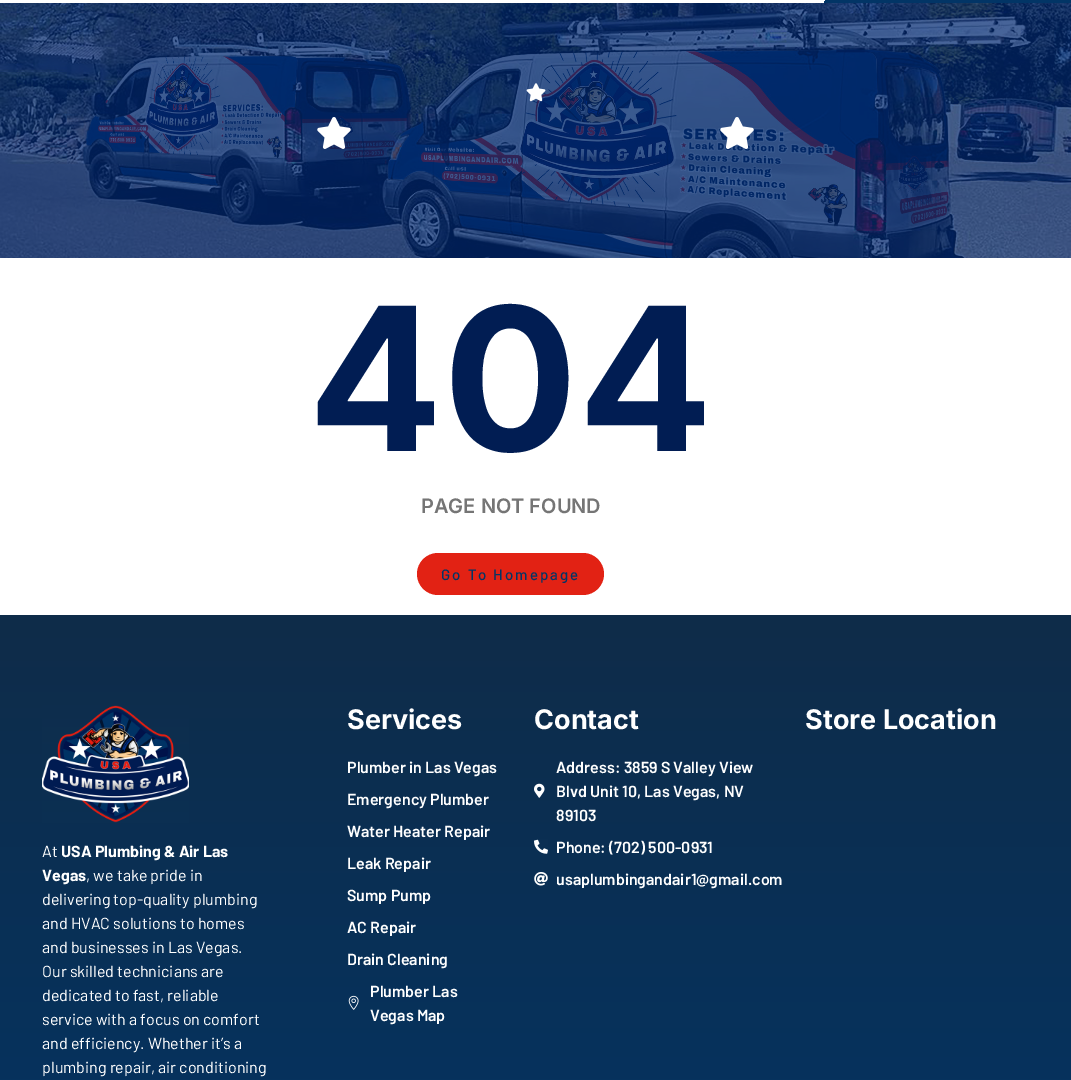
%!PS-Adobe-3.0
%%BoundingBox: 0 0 1071 1080
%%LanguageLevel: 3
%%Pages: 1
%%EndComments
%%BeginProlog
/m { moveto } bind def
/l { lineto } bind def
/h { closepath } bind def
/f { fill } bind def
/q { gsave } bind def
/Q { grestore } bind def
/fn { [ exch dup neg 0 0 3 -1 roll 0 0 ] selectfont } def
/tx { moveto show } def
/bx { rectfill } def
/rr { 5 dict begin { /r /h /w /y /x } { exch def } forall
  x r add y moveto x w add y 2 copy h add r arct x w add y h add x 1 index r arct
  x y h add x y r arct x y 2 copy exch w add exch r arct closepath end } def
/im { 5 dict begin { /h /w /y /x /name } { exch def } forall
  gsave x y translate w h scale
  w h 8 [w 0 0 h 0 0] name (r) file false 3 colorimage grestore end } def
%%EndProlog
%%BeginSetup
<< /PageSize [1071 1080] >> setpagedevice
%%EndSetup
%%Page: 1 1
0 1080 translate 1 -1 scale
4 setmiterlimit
1 setgray
0 0 1071 1080 bx
q 824 0 m 1071 0 l 1071 3 l 824 3 l h clip newpath
<< /ShadingType 2 /ColorSpace /DeviceRGB /Coords [73 -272 998 160] /Extend [true true] /Function << /FunctionType 3 /Domain [0 1] /Functions [<< /FunctionType 2 /Domain [0 1] /C0 [1 1 1] /C1 [1 1 1] /N 1 >> << /FunctionType 2 /Domain [0 1] /C0 [0.008 0.208 0.4] /C1 [0.008 0.208 0.4] /N 1 >>] /Bounds [0.78] /Encode [0 1 0 1] >> >> shfill Q
(image0.raw) 0 3 1071 255 im
(image1.raw) 526 83 20 19 im
(image2.raw) 317 117 34 32 im
(image3.raw) 720 117 34 32 im
/Inter-Bold 200 fn
0.004 0.114 0.325 setrgbcolor
(404) 308 451 tx
/Inter-SemiBold 20 fn
0.459 setgray
(PAGE NOT FOUND) 421 513 tx
0.886 0.133 0.078 setrgbcolor
417 553 187 42 21 rr f
/Barlow-Medium 15 fn
0.008 0.208 0.4 setrgbcolor
441 580 m 2 0 (Go To Homepage) ashow
q 0 615 m 1071 615 l 1071 1080 l 0 1080 l h clip newpath
<< /ShadingType 2 /ColorSpace /DeviceRGB /Coords [536 615 536 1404] /Extend [true true] /Function << /FunctionType 3 /Domain [0 1] /Functions [<< /FunctionType 2 /Domain [0 1] /C0 [0.059 0.173 0.286] /C1 [0.008 0.208 0.4] /N 1 >> << /FunctionType 2 /Domain [0 1] /C0 [0.008 0.208 0.4] /C1 [0.008 0.208 0.4] /N 1 >>] /Bounds [0.85] /Encode [0 1 0 1] >> >> shfill Q
/Inter-Bold 27 fn
1 setgray
(Services) 347 729 tx
/Barlow-SemiBold 16 fn
(Plumber in Las Vegas) 347 773 tx
(Emergency Plumber) 347 805 tx
(Water Heater Repair) 347 837 tx
(Leak Repair) 347 869 tx
(Sump Pump) 347 901 tx
(AC Repair) 347 933 tx
(Drain Cleaning) 347 965 tx
(image4.raw) 348 995 11 15 im
(Plumber Las) 370 997 tx
(Vegas Map) 370 1021 tx
/Inter-Bold 27 fn
(Contact) 534 729 tx
(image5.raw) 534 783 11 15 im
/Barlow-SemiBold 16 fn
(Address: 3859 S Valley View) 556 773 tx
(Blvd Unit 10, Las Vegas, NV) 556 797 tx
(89103) 556 821 tx
(image6.raw) 534 839 14 15 im
(Phone: \(702\) 500-0931) 556 853 tx
(image7.raw) 534 872 14 14 im
(usaplumbingandair1@gmail.com) 556 885 tx
/Inter-Bold 27 fn
(Store Location) 805 729 tx
(image8.raw) 42 705 147 118 im
/Barlow-Regular 16 fn
(At) 42 857 tx
/Barlow-Bold 16 fn
(USA Plumbing & Air Las) 61 857 tx
(Vegas) 42 881 tx
/Barlow-Regular 16 fn
(, we take pride in) 86 881 tx
(delivering top-quality plumbing) 42 905 tx
(and HVAC solutions to homes) 42 929 tx
(and businesses in Las Vegas.) 42 953 tx
(Our skilled technicians are) 42 977 tx
(dedicated to fast, reliable) 42 1001 tx
(service with a focus on comfort) 42 1025 tx
(and efficiency. Whether it’s a) 42 1049 tx
(plumbing repair, air conditioning) 42 1073 tx
showpage
%%EOF
